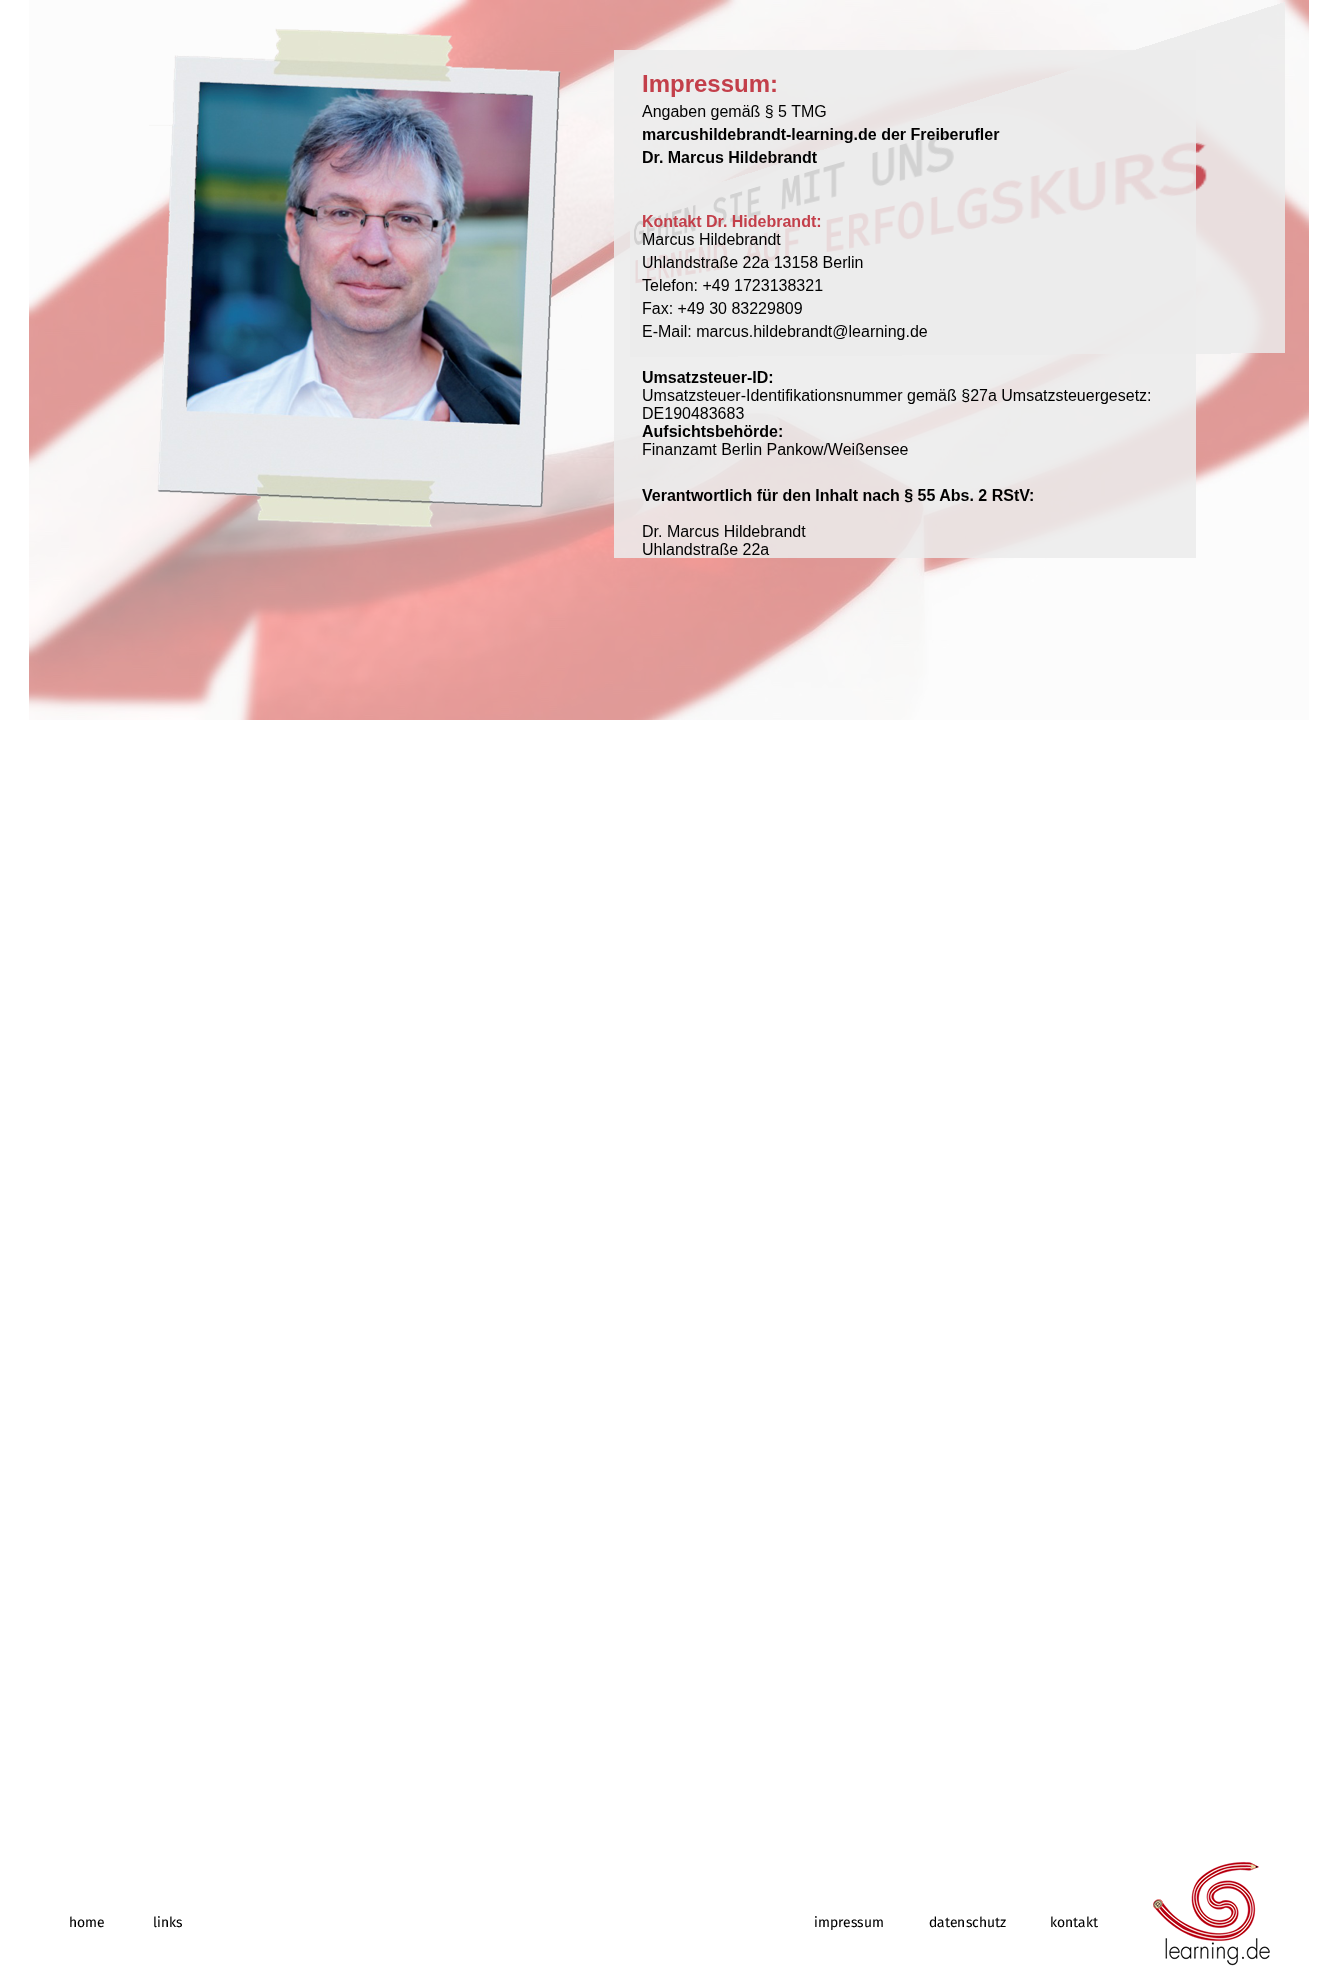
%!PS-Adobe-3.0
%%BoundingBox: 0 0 1338 1974
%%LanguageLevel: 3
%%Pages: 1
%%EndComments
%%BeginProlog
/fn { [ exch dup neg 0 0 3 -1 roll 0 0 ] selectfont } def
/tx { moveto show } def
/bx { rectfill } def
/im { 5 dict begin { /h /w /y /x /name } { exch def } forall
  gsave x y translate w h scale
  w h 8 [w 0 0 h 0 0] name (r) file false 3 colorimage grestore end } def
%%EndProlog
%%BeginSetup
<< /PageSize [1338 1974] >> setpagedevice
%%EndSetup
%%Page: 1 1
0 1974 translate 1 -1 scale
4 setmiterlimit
1 setgray
0 0 1338 1974 bx
(image0.raw) 29 0 1280 720 im
/FiraSans-Regular 14 fn
0 setgray
(home) 69 1927 tx
(links) 153 1927 tx
(impressum) 814 1927 tx
(datenschutz) 929 1927 tx
(kontakt) 1050 1927 tx
(image1.raw) 1153 1861 117 105 im
showpage
%%EOF
